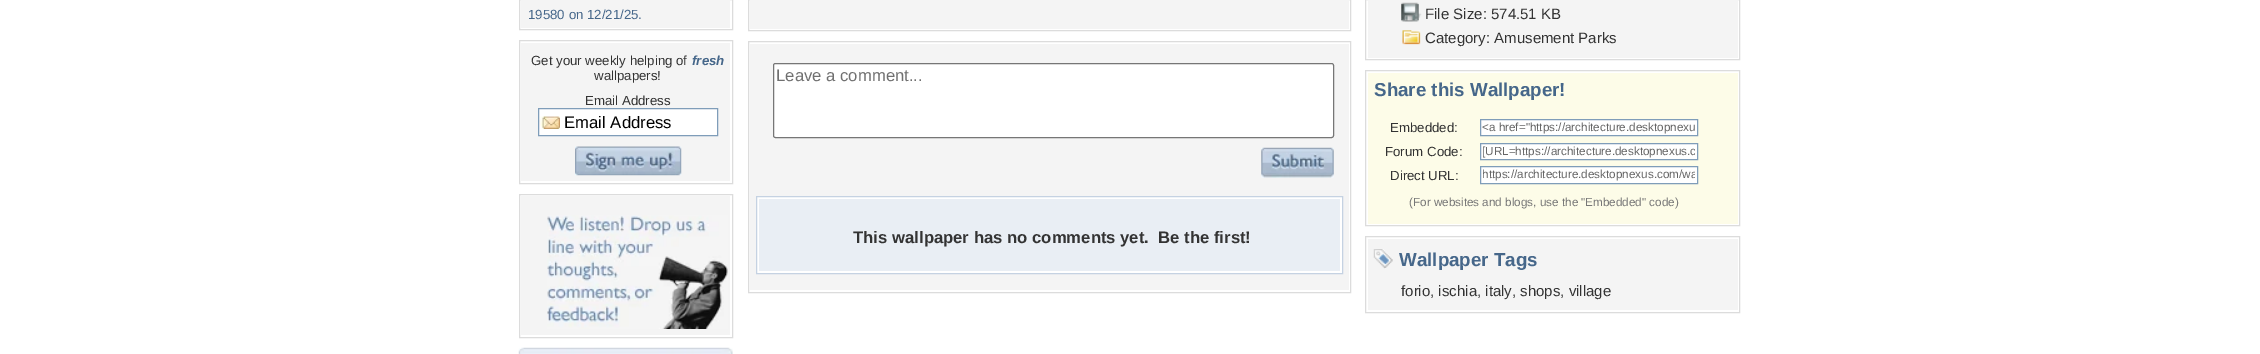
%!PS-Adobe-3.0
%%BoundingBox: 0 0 2260 354
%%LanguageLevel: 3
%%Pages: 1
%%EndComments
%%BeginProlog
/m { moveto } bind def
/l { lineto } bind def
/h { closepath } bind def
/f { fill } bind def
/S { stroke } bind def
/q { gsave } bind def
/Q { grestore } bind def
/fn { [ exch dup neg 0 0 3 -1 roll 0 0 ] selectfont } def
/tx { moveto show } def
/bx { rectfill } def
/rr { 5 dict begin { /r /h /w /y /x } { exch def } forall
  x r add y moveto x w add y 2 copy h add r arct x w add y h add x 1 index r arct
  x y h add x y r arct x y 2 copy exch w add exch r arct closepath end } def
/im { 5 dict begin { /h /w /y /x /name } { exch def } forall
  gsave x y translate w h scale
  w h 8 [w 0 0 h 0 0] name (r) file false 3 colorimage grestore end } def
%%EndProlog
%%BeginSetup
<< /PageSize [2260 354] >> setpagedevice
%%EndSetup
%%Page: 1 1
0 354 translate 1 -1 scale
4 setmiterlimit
1 setgray
0 0 2260 354 bx
0.863 setgray
519.5 -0.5 213 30 rectstroke
0.957 setgray
521 0 209 28 bx
/LiberationSans-Regular 13.25 fn
0.275 0.404 0.541 setrgbcolor
(19580 on 12/21/25.) 528 19 tx
0.863 setgray
519.5 40.5 213 143 rectstroke
0.957 setgray
521 43 209 138 bx
0.2 setgray
(Get your weekly helping of) 531 65 tx
/LiberationSans-BoldItalic 13.25 fn
0.275 0.404 0.541 setrgbcolor
(fresh) 692 65 tx
/LiberationSans-Regular 13.25 fn
0.2 setgray
(wallpapers!) 594 80 tx
(Email Address) 585 105 tx
1 setgray
539 109 178 26 bx
(image0.raw) 539 116 21 13 im
0.498 0.616 0.725 setrgbcolor
538.5 108.5 179 27 rectstroke
/LiberationSans-Regular 16.7 fn
0 setgray
(Email Address) 564 128 tx
(image1.raw) 575 146 107 30 im
0.863 setgray
519.5 194.5 213 143 rectstroke
0.957 setgray
521 196 209 139 bx
(image2.raw) 547 215 181 114 im
(image3.raw) 518 347 215 7 im
0.863 setgray
748.5 -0.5 602 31 rectstroke
0.957 setgray
750 0 599 29 bx
0.863 setgray
748.5 41.5 602 251 rectstroke
0.957 setgray
750 44 599 246 bx
1 setgray
773.5 63.5 560 74 2 rr q f Q
0.463 setgray
S
0.439 setgray
(Leave a comment...) 776 81 tx
(image4.raw) 1261 147 73 31 im
1 setgray
756.5 196.5 m 1342.5 196.5 l 1342.5 273.5 l 756.5 273.5 l h q f Q
0.773 0.824 0.886 setrgbcolor
S
0.914 0.933 0.957 setrgbcolor
759 199 581 72 bx
/LiberationSans-Bold 16.7 fn
0.2 setgray
(This wallpaper has no comments yet.  Be the first!) 853 243 tx
0.863 setgray
1365.5 -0.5 374 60 rectstroke
0.957 setgray
1368 0 370 58 bx
(image5.raw) 1401 2 21 20 im
/LiberationSans-Regular 15 fn
0.2 setgray
(File Size: 574.51 KB) 1425 19 tx
(image6.raw) 1402 30 19 15 im
(Category: Amusement Parks) 1425 43 tx
0.863 setgray
1365.5 70.5 374 155 rectstroke
0.992 0.988 0.91 setrgbcolor
1368 73 370 151 bx
/LiberationSans-Bold 18.75 fn
0.275 0.404 0.541 setrgbcolor
(Share this Wallpaper!) 1374 96 tx
/LiberationSans-Regular 13.25 fn
0.2 setgray
(Embedded:) 1390 132 tx
1 setgray
1480.5 119.5 m 1697.5 119.5 l 1697.5 135.5 l 1480.5 135.5 l h q f Q
0.498 0.616 0.725 setrgbcolor
S
/LiberationSans-Regular 11.7 fn
0.4 setgray
(<a href="https://architecture.desktopnexu) 1482 131 tx
/LiberationSans-Regular 13.25 fn
0.2 setgray
(Forum Code:) 1385 156 tx
1 setgray
1480.5 143.5 m 1697.5 143.5 l 1697.5 159.5 l 1480.5 159.5 l h q f Q
0.498 0.616 0.725 setrgbcolor
S
q
1483 145 212 13 rectclip
/LiberationSans-Regular 11.7 fn
0.4 setgray
([URL=https://architecture.desktopnexus.c) 1482 155 tx
Q
0.2 setgray
(Direct URL:) 1390 180 tx
1 setgray
1480.5 166.5 m 1697.5 166.5 l 1697.5 183.5 l 1480.5 183.5 l h q f Q
0.498 0.616 0.725 setrgbcolor
S
q
1483 169 212 12 rectclip
/LiberationSans-Regular 11.7 fn
0.4 setgray
(https://architecture.desktopnexus.com/wa) 1482 178 tx
Q
/LiberationSans-Regular 11.7 fn
0.467 setgray
(\(For websites and blogs, use the "Embedded" code\)) 1409 206 tx
0.863 setgray
1365.5 236.5 374 76 rectstroke
0.957 setgray
1368 239 370 71 bx
(image7.raw) 1373 249 20 20 im
/LiberationSans-Bold 18.75 fn
0.275 0.404 0.541 setrgbcolor
(Wallpaper Tags) 1399 266 tx
/LiberationSans-Regular 15 fn
0.2 setgray
(forio, ischia, italy, shops, village) 1401 296 tx
showpage
%%EOF
